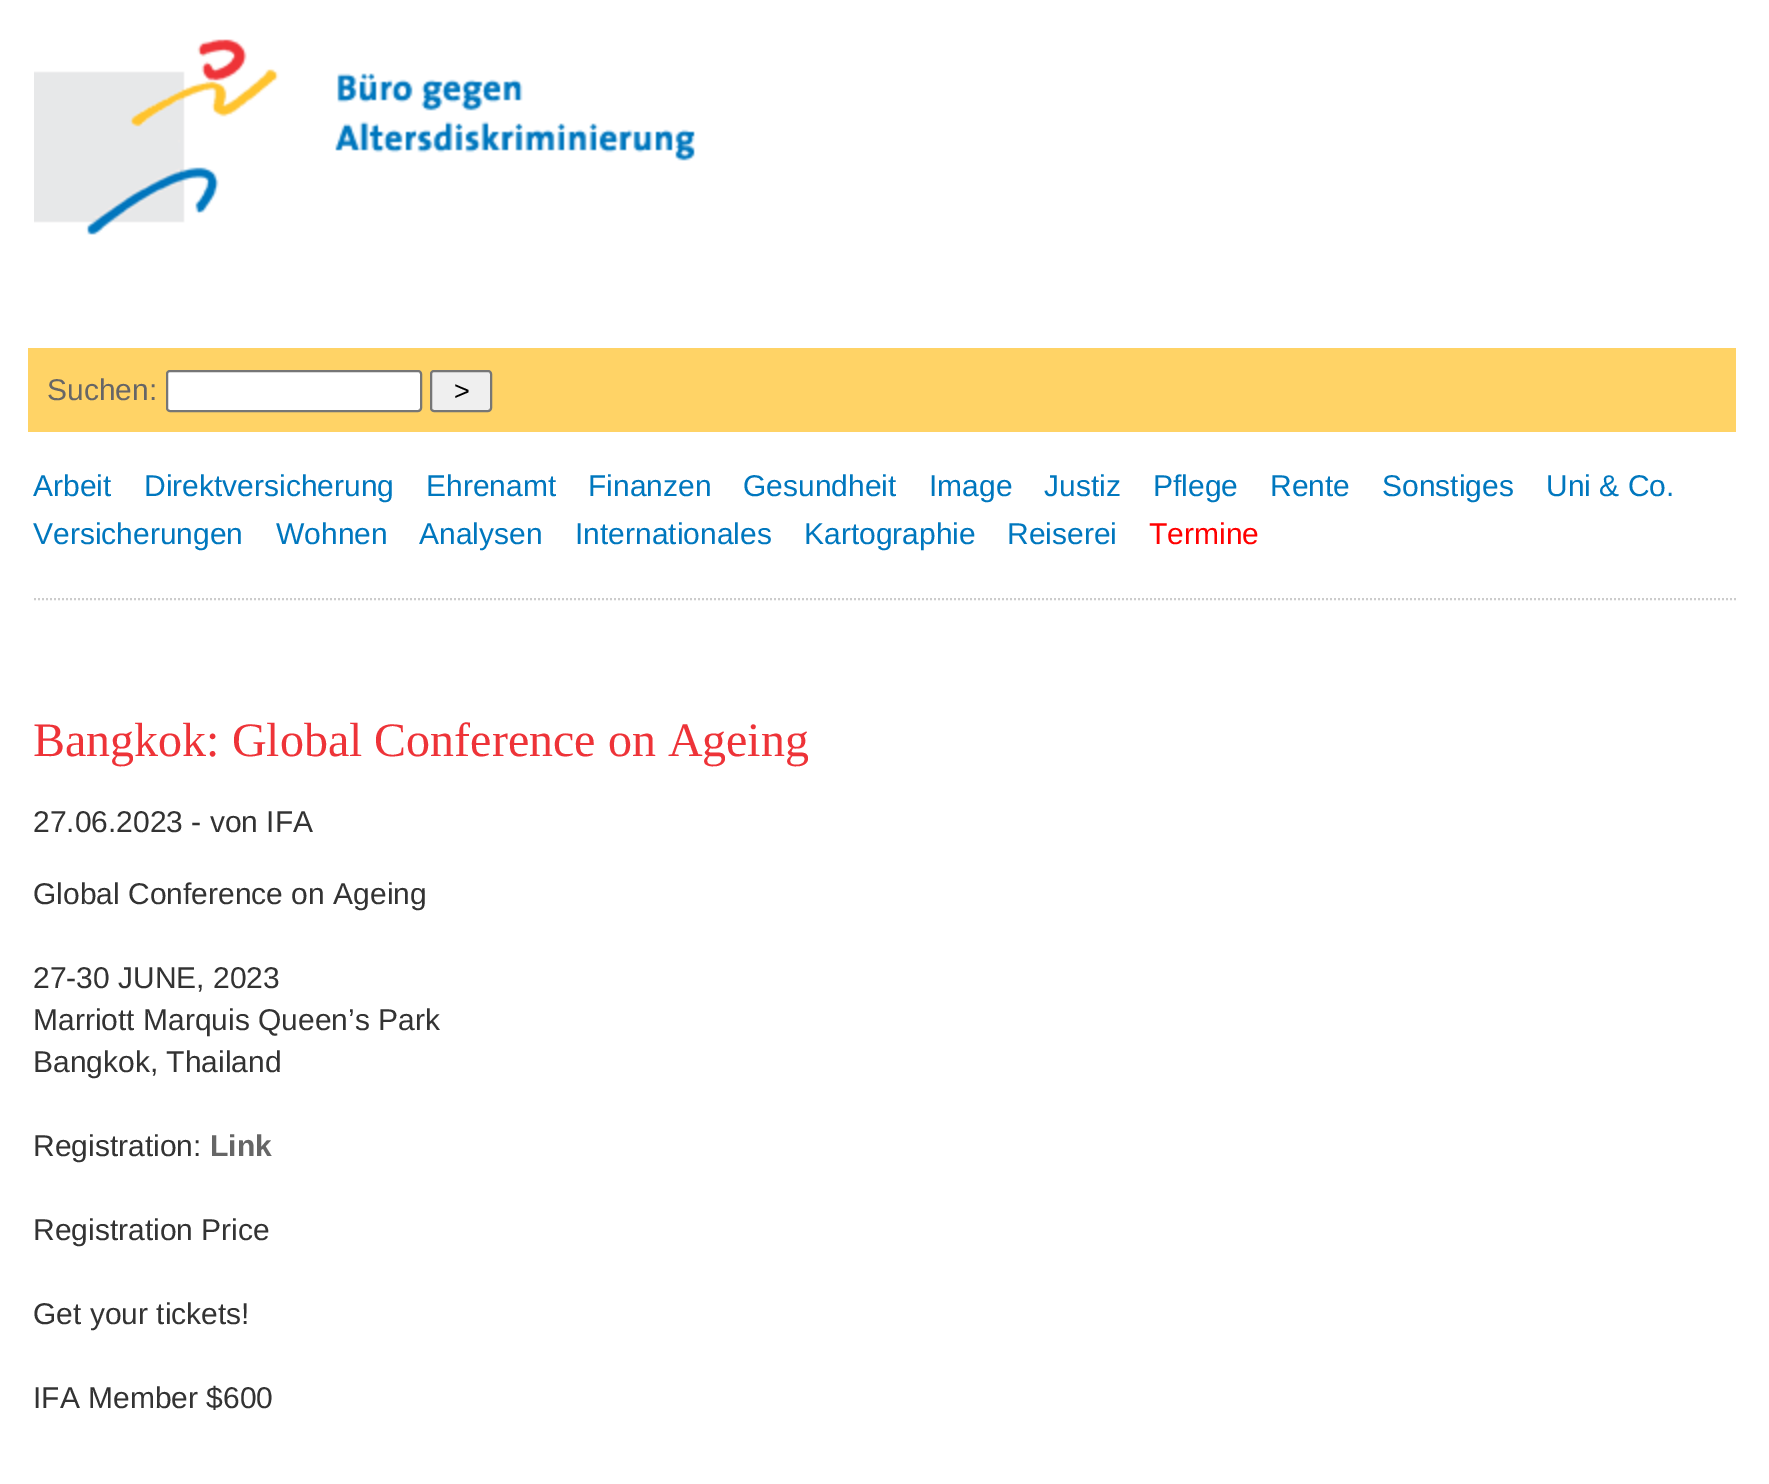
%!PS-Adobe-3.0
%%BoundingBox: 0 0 1769 1484
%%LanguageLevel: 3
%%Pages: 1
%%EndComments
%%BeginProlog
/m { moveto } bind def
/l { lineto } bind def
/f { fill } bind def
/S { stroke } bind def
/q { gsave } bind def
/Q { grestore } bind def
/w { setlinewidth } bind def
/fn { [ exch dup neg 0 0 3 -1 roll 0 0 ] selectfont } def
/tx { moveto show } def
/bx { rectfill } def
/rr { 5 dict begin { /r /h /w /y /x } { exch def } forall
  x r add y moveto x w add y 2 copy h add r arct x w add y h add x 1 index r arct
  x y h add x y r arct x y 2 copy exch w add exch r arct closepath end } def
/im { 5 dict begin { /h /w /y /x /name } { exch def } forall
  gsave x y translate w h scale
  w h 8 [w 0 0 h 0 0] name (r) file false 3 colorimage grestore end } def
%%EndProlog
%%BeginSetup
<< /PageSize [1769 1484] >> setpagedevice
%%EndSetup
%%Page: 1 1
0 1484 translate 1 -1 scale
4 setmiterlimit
1 setgray
0 0 1769 1484 bx
(image0.raw) 34 39 661 196 im
1 0.827 0.4 setrgbcolor
28 348 1708 84 bx
/LiberationSans-Regular 30 fn
0.4 setgray
(Suchen:) 47 400 tx
1 setgray
167 371 254 40 3 rr q f Q
0.463 setgray
2 w
S
0.937 setgray
431 371 60 40 3 rr q f Q
0.463 setgray
S
/LiberationSans-Regular 27 fn
0 setgray
(>) 454 400 tx
0.8 setgray
[2 2] 0 setdash
34 599 m 1736 599 l S
/LiberationSans-Regular 30 fn
0 0.467 0.745 setrgbcolor
(Arbeit) 33 496 tx
(Direktversicherung) 144 496 tx
(Ehrenamt) 426 496 tx
(Finanzen) 588 496 tx
(Gesundheit) 743 496 tx
(Image) 929 496 tx
(Justiz) 1044 496 tx
(Pflege) 1153 496 tx
(Rente) 1270 496 tx
(Sonstiges) 1382 496 tx
(Uni & Co.) 1546 496 tx
(Versicherungen) 33 544 tx
(Wohnen) 276 544 tx
(Analysen) 419 544 tx
(Internationales) 575 544 tx
(Kartographie) 804 544 tx
(Reiserei) 1007 544 tx
1 0 0 setrgbcolor
(Termine) 1149 544 tx
/LiberationSerif-Regular 48 fn
0.933 0.2 0.22 setrgbcolor
(Bangkok: Global Conference on Ageing) 33 756 tx
/LiberationSans-Regular 30 fn
0.2 setgray
(27.06.2023 - von IFA) 33 832 tx
(Global Conference on Ageing) 33 904 tx
(27-30 JUNE, 2023) 33 988 tx
(Marriott Marquis Queen’s Park) 33 1030 tx
(Bangkok, Thailand) 33 1072 tx
(Registration:) 33 1156 tx
/LiberationSans-Bold 30 fn
0.4 setgray
(Link) 210 1156 tx
/LiberationSans-Regular 30 fn
0.2 setgray
(Registration Price) 33 1240 tx
(Get your tickets!) 33 1324 tx
(IFA Member $600) 33 1408 tx
showpage
%%EOF
